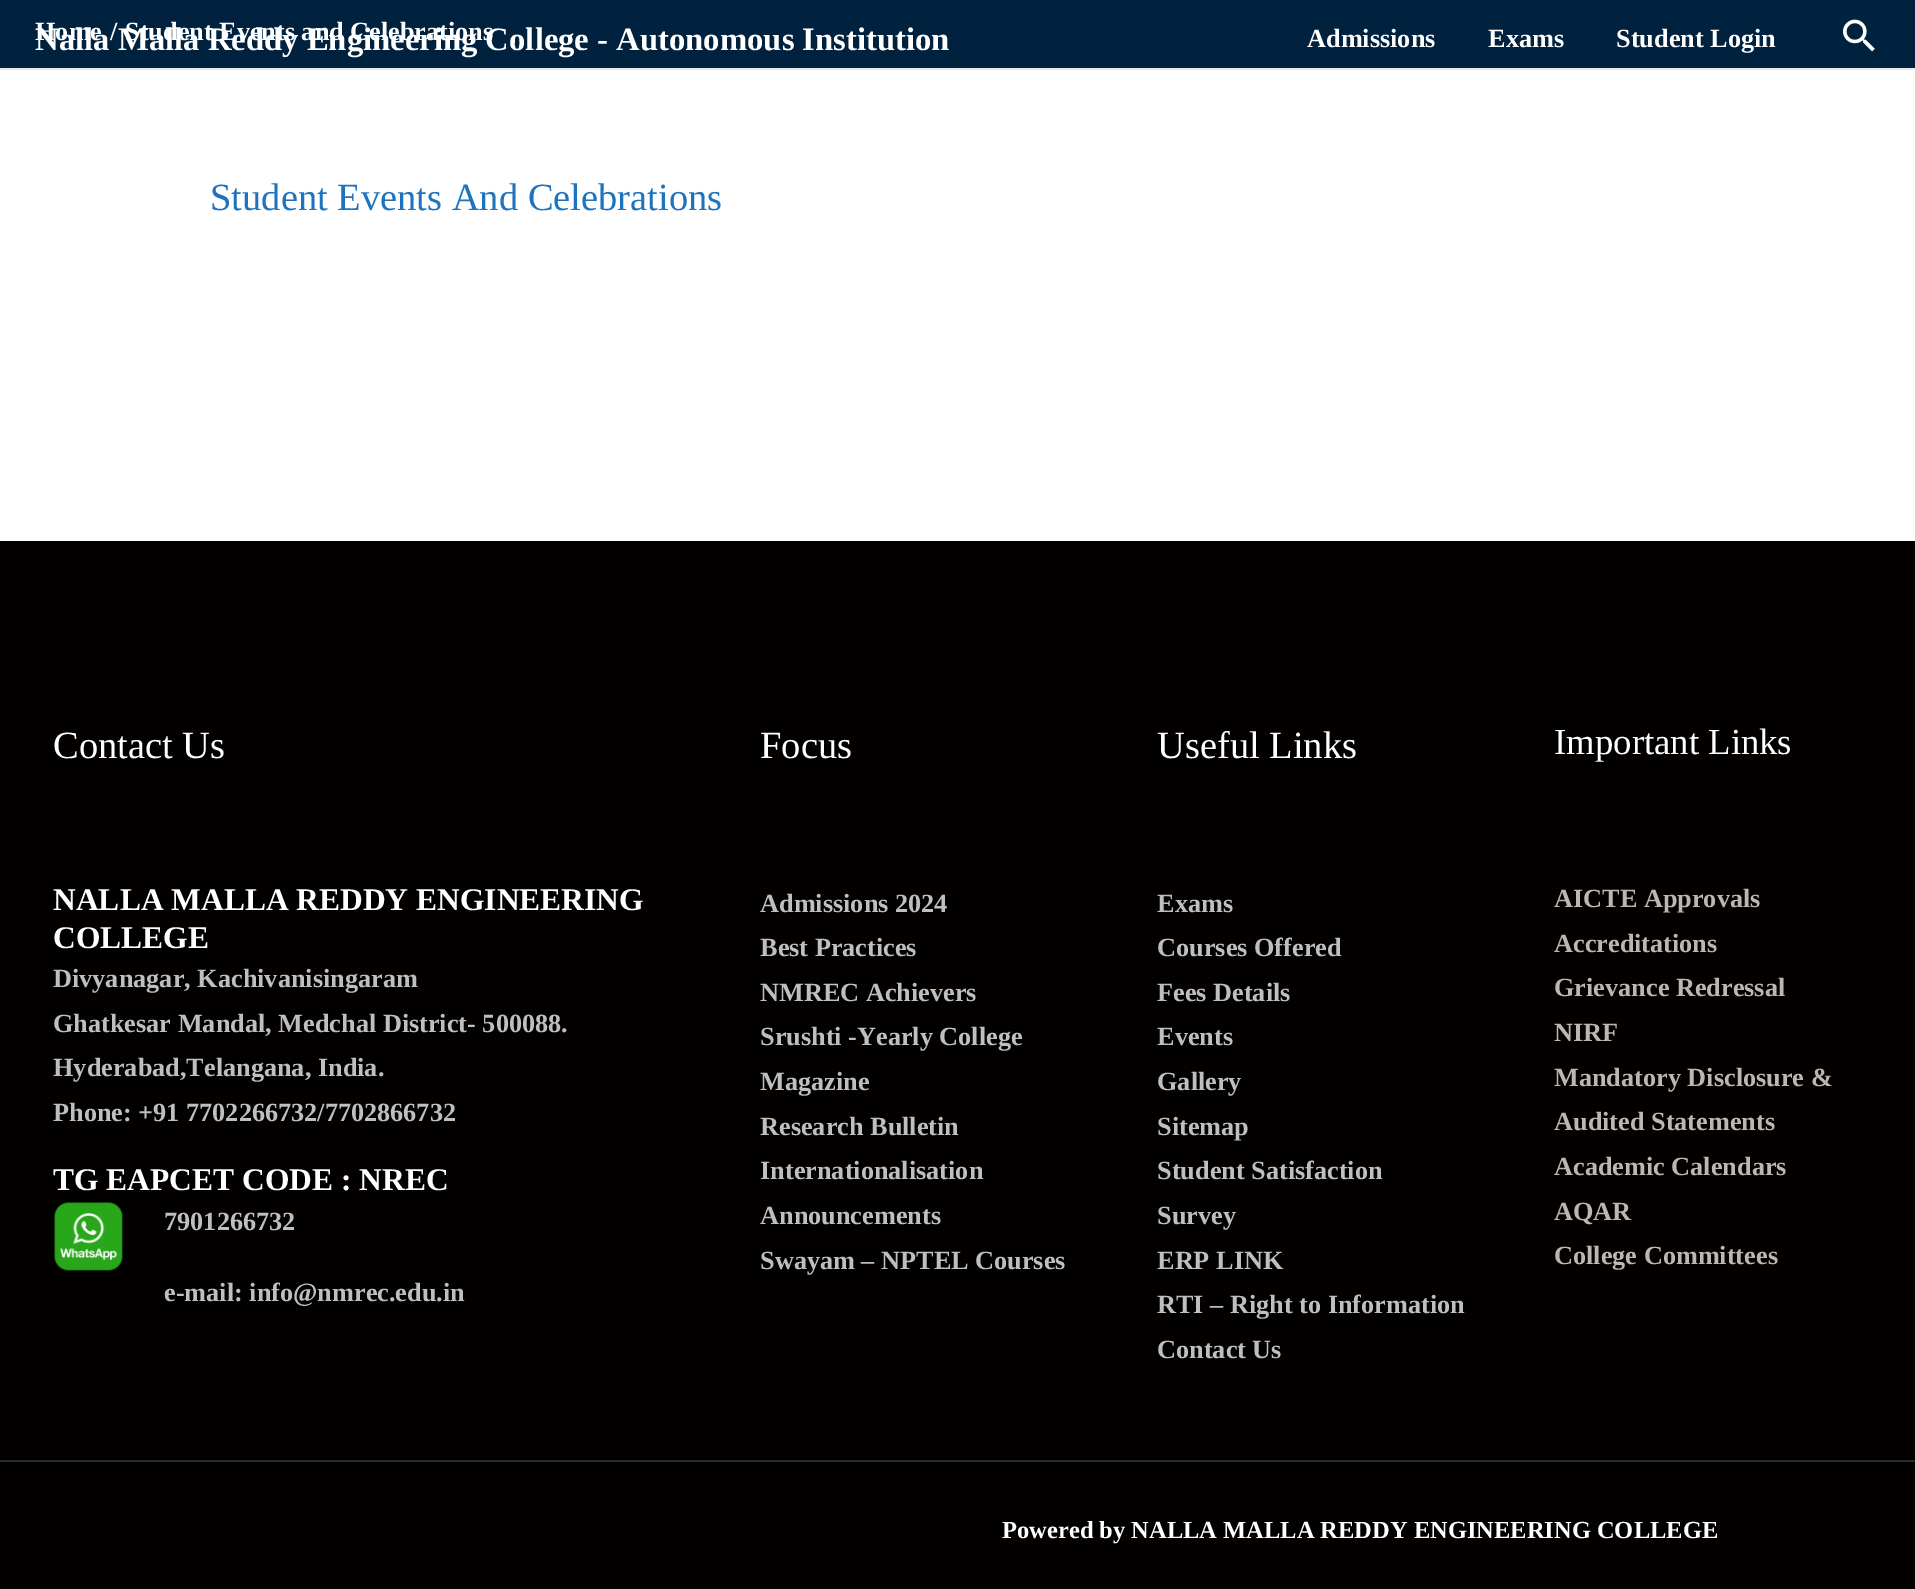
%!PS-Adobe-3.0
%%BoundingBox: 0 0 1915 1589
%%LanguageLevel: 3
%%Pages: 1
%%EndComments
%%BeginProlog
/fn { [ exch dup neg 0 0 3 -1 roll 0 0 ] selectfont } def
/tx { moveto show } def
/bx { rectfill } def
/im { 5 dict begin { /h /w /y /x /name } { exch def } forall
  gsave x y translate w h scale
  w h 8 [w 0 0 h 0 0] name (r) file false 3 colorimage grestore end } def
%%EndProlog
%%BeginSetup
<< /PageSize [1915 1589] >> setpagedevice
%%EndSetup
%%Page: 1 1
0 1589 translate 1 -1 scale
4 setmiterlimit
1 setgray
0 0 1915 1589 bx
0 0.133 0.247 setrgbcolor
0 0 1915 68 bx
0.918 setgray
0 68 1915 2 bx
/LiberationSerif-Bold 26.25 fn
1 setgray
(Home) 35 40 tx
(/) 110 40 tx
(Student Events and Celebrations) 125 40 tx
/LiberationSerif-Bold 32.7 fn
(Nalla Malla Reddy Engineering College - Autonomous Institution) 35 50 tx
/LiberationSerif-Bold 26.25 fn
(Admissions) 1307 47 tx
(Exams) 1488 47 tx
(Student Login) 1616 47 tx
(image0.raw) 1843 19 32 33 im
/LiberationSerif-Regular 38.5 fn
0.118 0.451 0.745 setrgbcolor
(Student Events And Celebrations) 210 210 tx
0.012 0 0 setrgbcolor
0 541 1915 1048 bx
1 setgray
(Contact Us) 53 758 tx
/LiberationSerif-Bold 31.5 fn
(NALLA MALLA REDDY ENGINEERING) 53 910 tx
(COLLEGE) 53 948 tx
/LiberationSerif-Bold 26.25 fn
0.749 setgray
(Divyanagar, Kachivanisingaram) 53 987 tx
(Ghatkesar Mandal, Medchal District- 500088.) 53 1032 tx
(Hyderabad,Telangana, India.) 53 1076 tx
(Phone: +91 7702266732/7702866732) 53 1121 tx
/LiberationSerif-Bold 31.5 fn
1 setgray
(TG EAPCET CODE : NREC) 53 1190 tx
(image1.raw) 54 1202 69 69 im
/LiberationSerif-Bold 26.25 fn
0.749 setgray
(7901266732) 164 1230 tx
(e-mail: info@nmrec.edu.in) 164 1301 tx
/LiberationSerif-Regular 38.5 fn
1 setgray
(Focus) 760 758 tx
/LiberationSerif-Bold 26.25 fn
0.749 setgray
(Admissions 2024) 760 912 tx
(Best Practices) 760 956 tx
(NMREC Achievers) 760 1001 tx
(Srushti -Yearly College) 760 1045 tx
(Magazine) 760 1090 tx
(Research Bulletin) 760 1135 tx
(Internationalisation) 760 1179 tx
(Announcements) 760 1224 tx
(Swayam – NPTEL Courses) 760 1269 tx
/LiberationSerif-Regular 38.5 fn
1 setgray
(Useful Links) 1157 758 tx
/LiberationSerif-Bold 26.25 fn
0.749 setgray
(Exams) 1157 912 tx
(Courses Offered) 1157 956 tx
(Fees Details) 1157 1001 tx
(Events) 1157 1045 tx
(Gallery) 1157 1090 tx
(Sitemap) 1157 1135 tx
(Student Satisfaction) 1157 1179 tx
(Survey) 1157 1224 tx
(ERP LINK) 1157 1269 tx
(RTI – Right to Information) 1157 1313 tx
(Contact Us) 1157 1358 tx
/LiberationSerif-Regular 36.75 fn
1 setgray
(Important Links) 1554 754 tx
/LiberationSerif-Bold 26.25 fn
0.737 0.718 0.718 setrgbcolor
(AICTE Approvals) 1554 907 tx
(Accreditations) 1554 952 tx
(Grievance Redressal) 1554 996 tx
(NIRF) 1554 1041 tx
(Mandatory Disclosure &) 1554 1086 tx
(Audited Statements) 1554 1130 tx
(Academic Calendars) 1554 1175 tx
(AQAR) 1554 1220 tx
(College Committees) 1554 1264 tx
0.169 setgray
0 1460 1915 2 bx
/LiberationSerif-Bold 24.5 fn
1 setgray
(Powered by NALLA MALLA REDDY ENGINEERING COLLEGE) 1002 1538 tx
showpage
%%EOF
